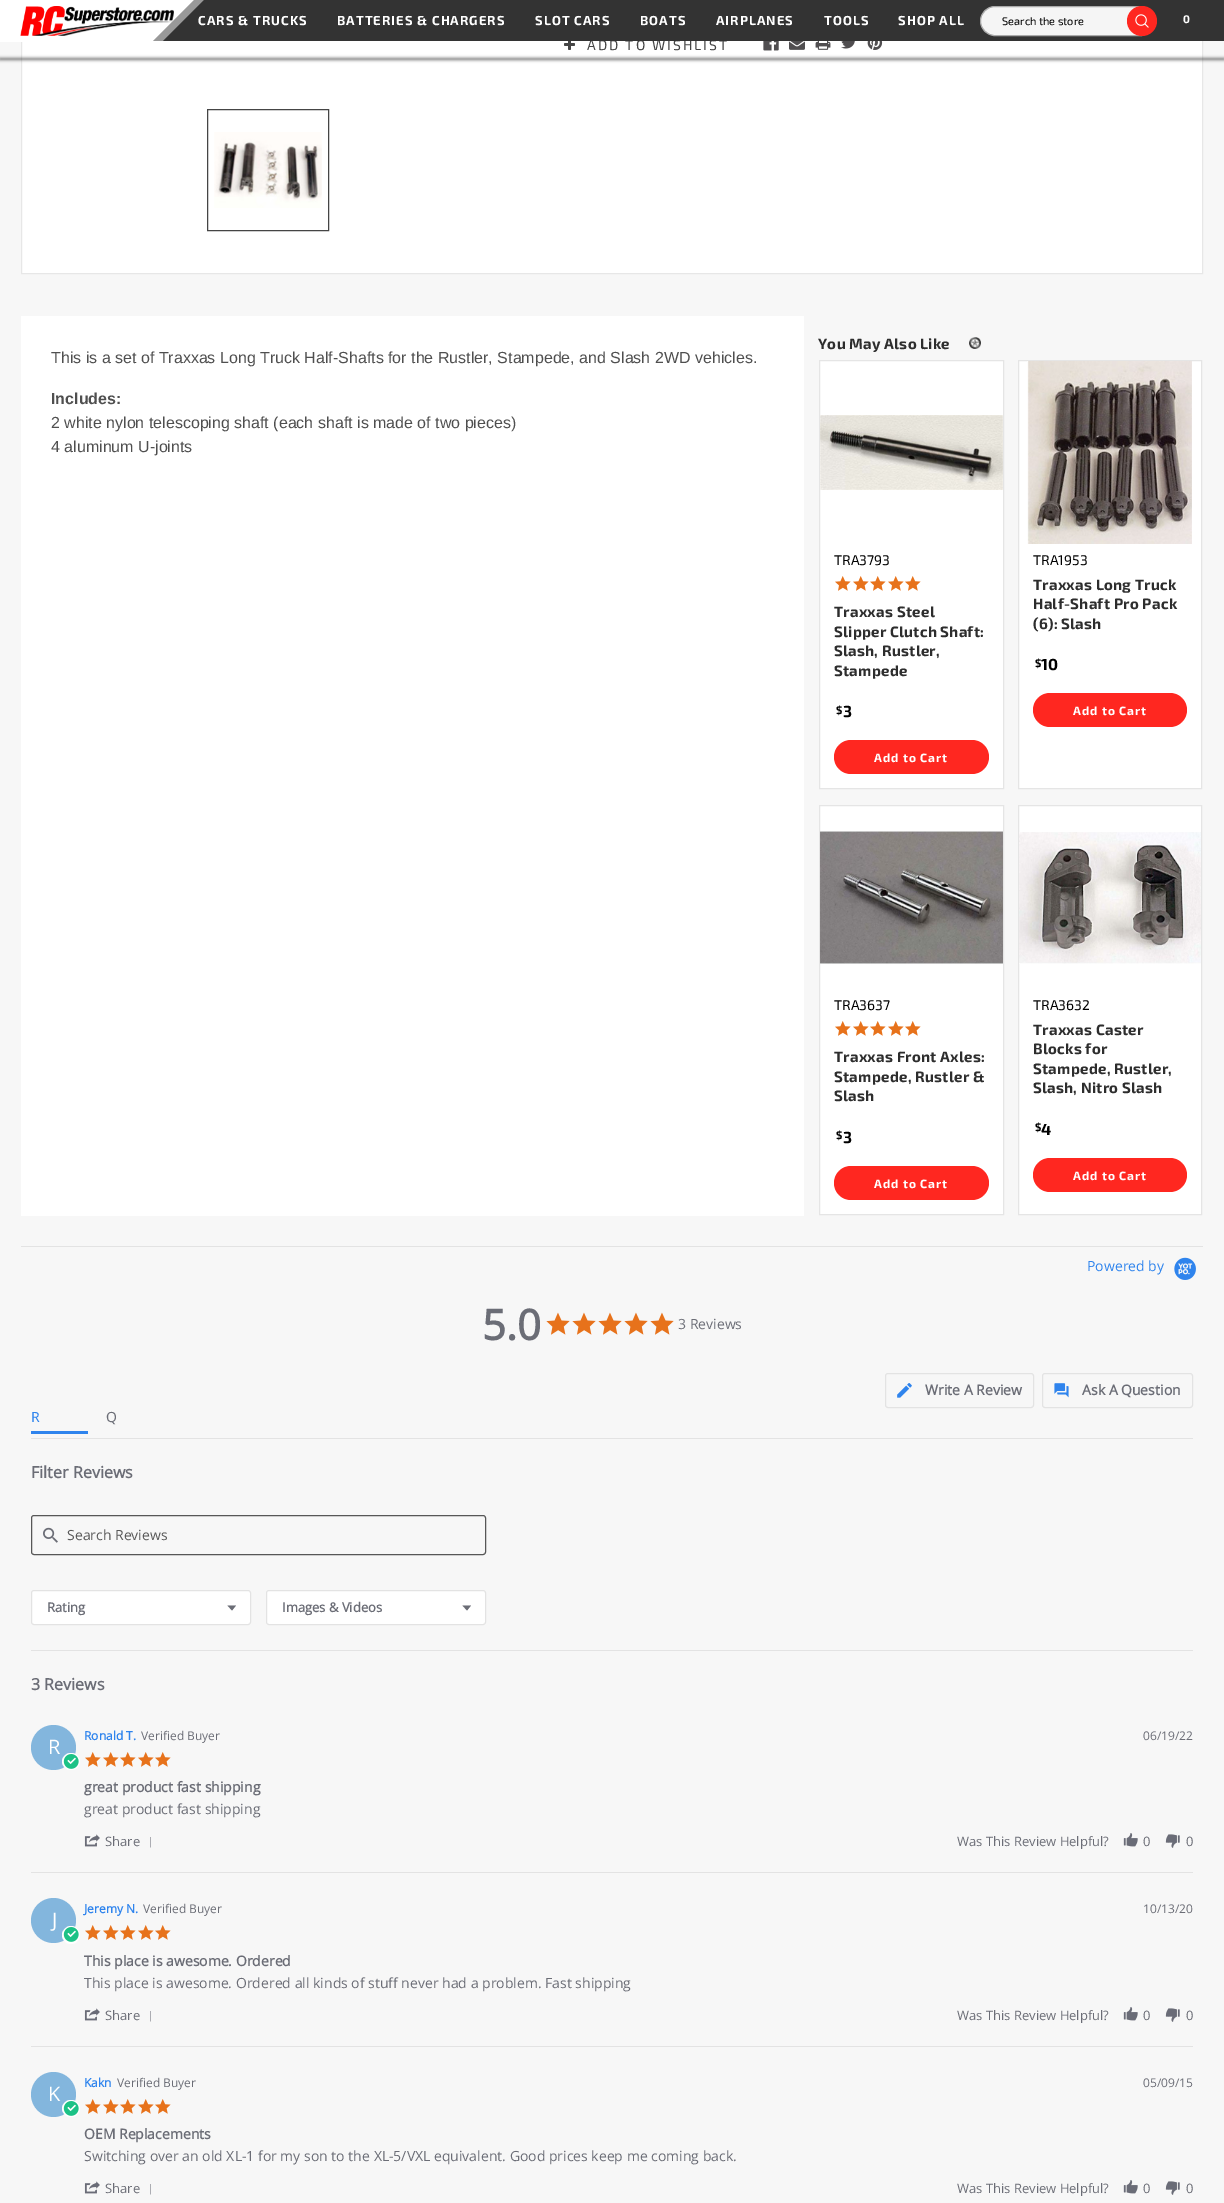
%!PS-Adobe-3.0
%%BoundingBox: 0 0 1224 2203
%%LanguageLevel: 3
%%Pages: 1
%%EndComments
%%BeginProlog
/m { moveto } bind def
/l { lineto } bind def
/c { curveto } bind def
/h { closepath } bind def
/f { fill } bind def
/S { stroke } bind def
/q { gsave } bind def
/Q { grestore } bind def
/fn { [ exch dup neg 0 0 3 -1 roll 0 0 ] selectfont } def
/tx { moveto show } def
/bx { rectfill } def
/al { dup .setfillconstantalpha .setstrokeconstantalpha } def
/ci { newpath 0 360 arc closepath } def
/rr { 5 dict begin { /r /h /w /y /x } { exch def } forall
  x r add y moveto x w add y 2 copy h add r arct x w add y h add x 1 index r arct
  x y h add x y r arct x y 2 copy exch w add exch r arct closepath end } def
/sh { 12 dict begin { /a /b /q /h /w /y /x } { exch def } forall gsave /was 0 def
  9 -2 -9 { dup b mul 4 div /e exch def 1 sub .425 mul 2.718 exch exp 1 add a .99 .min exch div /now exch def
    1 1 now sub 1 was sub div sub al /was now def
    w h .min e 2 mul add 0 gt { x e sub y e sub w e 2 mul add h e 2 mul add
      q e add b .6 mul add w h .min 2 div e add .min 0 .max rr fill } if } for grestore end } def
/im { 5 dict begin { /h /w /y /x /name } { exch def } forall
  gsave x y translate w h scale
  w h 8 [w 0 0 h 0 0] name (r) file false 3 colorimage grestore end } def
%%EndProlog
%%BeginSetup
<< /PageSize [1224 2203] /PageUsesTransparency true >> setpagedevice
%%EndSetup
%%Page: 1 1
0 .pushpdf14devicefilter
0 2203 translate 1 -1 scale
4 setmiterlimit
0.969 setgray
0 0 1224 2203 bx
1 setgray
22 41 1180 232 bx
0.906 setgray
21.5 -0.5 1181 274 rectstroke
0 setgray
0 58 1224 2 0 1.5 0.5 sh
1 setgray
0 0 184 42 bx
(image0.raw) 20 6 154 30 im
184 0 10 10 bx
0.6 setgray
194 0 m 254 0 l 213 41 l 153 41 l h f
/Exo2-Regular 14 fn
0.271 setgray
587 50 m 2 0 (ADD TO WISHLIST) ashow
0.2 setgray
204 0 m 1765 0 l 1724 41 l 163 41 l h f
/Exo2-Bold 13 fn
1 setgray
198 25 m 1 0 (CARS & TRUCKS) ashow
337 25 m 1 0 (BATTERIES & CHARGERS) ashow
535 25 m 1 0 (SLOT CARS) ashow
640 25 m 1 0 (BOATS) ashow
716 25 m 1 0 (AIRPLANES) ashow
824 25 m 1 0 (TOOLS) ashow
898 25 m 1 0 (SHOP ALL) ashow
0.961 setgray
995 6.5 m 1141.5 6.5 l 1141.5 35.5 l 995 35.5 l 987 35.5 980.5 29 980.5 21 c 980.5 13 987 6.5 995 6.5 c h q f Q
0.667 setgray
S
/Exo2-Regular 11 fn
0 setgray
(Search the store) 1002 25 tx
1 0.153 0.125 setrgbcolor
1142 21 15 ci f
(image1.raw) 1135 14 14 14 im
/Exo2-Bold 11 fn
1 setgray
(0) 1183 23 tx
(image2.raw) 564 41 11 9 im
(image3.raw) 763 41 16 10 im
(image4.raw) 789 41 16 9 im
(image5.raw) 815 41 16 9 im
(image6.raw) 841 41 14 8 im
(image7.raw) 867 41 16 9 im
0.271 setgray
207.5 109.5 121 121 rectstroke
(image8.raw) 214 132 108 76 im
1 setgray
21 316 783 900 bx
/LiberationSans-Regular 16 fn
0.31 setgray
(This is a set of Traxxas Long Truck Half-Shafts for the Rustler, Stampede, and Slash 2WD vehicles.) 51 363 tx
/LiberationSans-Bold 16 fn
(Includes:) 51 404 tx
/LiberationSans-Regular 16 fn
(2 white nylon telescoping shaft \(each shaft is made of two pieces\)) 51 428 tx
(4 aluminum U-joints) 51 452 tx
/Exo2-Bold 15 fn
0.176 setgray
818 349 m 0.25 0 (You May Also Like) ashow
(image9.raw) 969 337 12 12 im
1 setgray
819.5 360.5 m 1003.5 360.5 l 1003.5 788.5 l 819.5 788.5 l h q f Q
0.898 setgray
S
(image10.raw) 820 415 183 75 im
/Exo2-Regular 14 fn
0 setgray
(TRA3793) 834 565 tx
(image11.raw) 835 576 16 15 im
(image11.raw) 853 576 16 15 im
(image11.raw) 870 576 16 15 im
(image11.raw) 888 576 16 15 im
(image11.raw) 905 576 16 15 im
/Exo2-Bold 15 fn
0.176 setgray
834 617 m 0.25 0 (Traxxas Steel) ashow
834 637 m 0.25 0 (Slipper Clutch Shaft:) ashow
834 656 m 0.25 0 (Slash, Rustler,) ashow
834 676 m 0.25 0 (Stampede) ashow
/Exo2-Bold 11 fn
0 setgray
($) 836 714 tx
/Exo2-Bold 16 fn
(3) 843 717 tx
1 0.153 0.125 setrgbcolor
834 740 155 34 17 rr f
/Exo2-Bold 12 fn
1 setgray
874 762 m 1 0 (Add to Cart) ashow
1018.5 360.5 m 1201.5 360.5 l 1201.5 788.5 l 1018.5 788.5 l h q f Q
0.898 setgray
S
(image12.raw) 1027 361 165 183 im
/Exo2-Regular 14 fn
0 setgray
(TRA1953) 1033 565 tx
/Exo2-Bold 15 fn
0.176 setgray
1033 590 m 0.25 0 (Traxxas Long Truck) ashow
1033 609 m 0.25 0 (Half-Shaft Pro Pack) ashow
1033 629 m 0.25 0 (\(6\): Slash) ashow
/Exo2-Bold 11 fn
0 setgray
($) 1035 667 tx
/Exo2-Bold 16 fn
(10) 1041 670 tx
1 0.153 0.125 setrgbcolor
1033 693 154 34 17 rr f
/Exo2-Bold 12 fn
1 setgray
1073 715 m 1 0 (Add to Cart) ashow
819.5 805.5 m 1003.5 805.5 l 1003.5 1214.5 l 819.5 1214.5 l h q f Q
0.898 setgray
S
(image13.raw) 820 831 183 133 im
/Exo2-Regular 14 fn
0 setgray
(TRA3637) 834 1010 tx
(image11.raw) 835 1021 16 15 im
(image11.raw) 853 1021 16 15 im
(image11.raw) 870 1021 16 15 im
(image11.raw) 888 1021 16 15 im
(image11.raw) 905 1021 16 15 im
/Exo2-Bold 15 fn
0.176 setgray
834 1062 m 0.25 0 (Traxxas Front Axles:) ashow
834 1082 m 0.25 0 (Stampede, Rustler &) ashow
834 1101 m 0.25 0 (Slash) ashow
/Exo2-Bold 11 fn
0 setgray
($) 836 1139 tx
/Exo2-Bold 16 fn
(3) 843 1143 tx
1 0.153 0.125 setrgbcolor
834 1166 155 34 17 rr f
/Exo2-Bold 12 fn
1 setgray
874 1188 m 1 0 (Add to Cart) ashow
1018.5 805.5 m 1201.5 805.5 l 1201.5 1214.5 l 1018.5 1214.5 l h q f Q
0.898 setgray
S
(image14.raw) 1019 832 182 132 im
/Exo2-Regular 14 fn
0 setgray
(TRA3632) 1033 1010 tx
/Exo2-Bold 15 fn
0.176 setgray
1033 1035 m 0.25 0 (Traxxas Caster) ashow
1033 1054 m 0.25 0 (Blocks for) ashow
1033 1074 m 0.25 0 (Stampede, Rustler,) ashow
1033 1093 m 0.25 0 (Slash, Nitro Slash) ashow
/Exo2-Bold 11 fn
0 setgray
($) 1035 1131 tx
/Exo2-Bold 16 fn
(4) 1041 1135 tx
1 0.153 0.125 setrgbcolor
1033 1158 154 34 17 rr f
/Exo2-Bold 12 fn
1 setgray
1073 1180 m 1 0 (Add to Cart) ashow
0.89 setgray
21 1246 1182 1 bx
/OpenSans-Regular 14 fn
0.184 0.518 0.929 setrgbcolor
(Powered by) 1087 1271 tx
(image15.raw) 1174 1257 22 23 im
/OpenSans-Bold 42 fn
0.42 0.427 0.463 setrgbcolor
(5.0) 482 1340 tx
(image16.raw) 546 1312 24 23 im
(image16.raw) 572 1312 24 23 im
(image16.raw) 598 1312 24 23 im
(image16.raw) 624 1312 24 23 im
(image16.raw) 650 1312 24 23 im
/OpenSans-Regular 14 fn
(3 Reviews) 678 1329 tx
0.89 setgray
885.5 1373.5 148 34 2.5 rr S
(image17.raw) 897 1383 15 15 im
/OpenSans-Bold 14 fn
0.42 0.427 0.463 setrgbcolor
(Write A Review) 925 1395 tx
0.89 setgray
1042.5 1373.5 150 34 2.5 rr S
(image18.raw) 1054 1383 15 15 im
0.42 0.427 0.463 setrgbcolor
(Ask A Question) 1082 1395 tx
0.89 setgray
31 1438 1162 1 bx
0.184 0.518 0.929 setrgbcolor
31 1431 57 3 bx
/NotoSans-Regular 14 fn
(R) 31 1422 tx
0.42 0.427 0.463 setrgbcolor
(Q) 106 1422 tx
0.89 setgray
31 1650 1162 1 bx
/OpenSans-Bold 16 fn
0.42 0.427 0.463 setrgbcolor
(Filter Reviews) 31 1478 tx
0.341 setgray
31.5 1515.5 454 39 2.5 rr S
(image19.raw) 43 1527 15 16 im
/OpenSans-Regular 14 fn
(Search Reviews) 67 1540 tx
1 setgray
31.5 1590.5 219 34 2.5 rr q f Q
0.89 setgray
S
/OpenSans-Bold 13 fn
0.42 0.427 0.463 setrgbcolor
(Rating) 47 1612 tx
232 1610.5 m 227.5 1605.5 l 236 1605.5 l h f
1 setgray
266.5 1590.5 219 34 2.5 rr q f Q
0.89 setgray
S
0.42 0.427 0.463 setrgbcolor
(Images & Videos) 282 1612 tx
467 1610.5 m 462.5 1605.5 l 471 1605.5 l h f
/OpenSans-Bold 16 fn
(3 Reviews) 31 1690 tx
/OpenSans-Bold 12 fn
0.184 0.518 0.929 setrgbcolor
(Ronald T.) 84 1740 tx
/OpenSans-Regular 12 fn
0.42 0.427 0.463 setrgbcolor
(Verified Buyer) 141 1740 tx
(image20.raw) 85 1752 16 15 im
(image20.raw) 103 1752 16 15 im
(image20.raw) 120 1752 16 15 im
(image20.raw) 138 1752 16 15 im
(image20.raw) 155 1752 16 15 im
(06/19/22) 1143 1740 tx
0.514 0.714 0.867 setrgbcolor
53.5 1747.5 22.5 ci f
/OpenSans-Regular 20 fn
1 setgray
(R) 48 1754 tx
62 1753 18 17 8.5 rr f
(image21.raw) 63 1754 16 15 im
/OpenSans-Bold 14 fn
0.42 0.427 0.463 setrgbcolor
(great product fast shipping) 84 1792 tx
/OpenSans-Regular 14 fn
(great product fast shipping) 84 1814 tx
(image22.raw) 84 1834 16 13 im
/OpenSans-Regular 13 fn
(Share) 105 1846 tx
0.416 0.424 0.467 setrgbcolor
150 1837 m 150.5 1837 l 150.5 1847.5 l 150 1847.5 l h f
0.42 0.427 0.463 setrgbcolor
(Was This Review Helpful?) 957 1846 tx
(image23.raw) 1123 1833 15 14 im
(0) 1143 1846 tx
(image24.raw) 1165 1834 15 14 im
(0) 1186 1846 tx
0.89 setgray
31 1872 1162 1 bx
/OpenSans-Bold 12 fn
0.184 0.518 0.929 setrgbcolor
(Jeremy N.) 84 1913 tx
/OpenSans-Regular 12 fn
0.42 0.427 0.463 setrgbcolor
(Verified Buyer) 143 1913 tx
(image20.raw) 85 1925 16 15 im
(image20.raw) 103 1925 16 15 im
(image20.raw) 120 1925 16 15 im
(image20.raw) 138 1925 16 15 im
(image20.raw) 155 1925 16 15 im
(10/13/20) 1143 1913 tx
0.514 0.714 0.867 setrgbcolor
53.5 1920.5 22.5 ci f
/OpenSans-Regular 20 fn
1 setgray
(J) 52 1927 tx
71 1935 9 ci f
(image25.raw) 63 1927 16 15 im
/OpenSans-Bold 14 fn
0.42 0.427 0.463 setrgbcolor
(This place is awesome. Ordered) 84 1966 tx
/OpenSans-Regular 14 fn
(This place is awesome. Ordered all kinds of stuff never had a problem. Fast shipping) 84 1988 tx
(image22.raw) 84 2008 16 13 im
/OpenSans-Regular 13 fn
(Share) 105 2020 tx
0.416 0.424 0.467 setrgbcolor
150 2011 m 150.5 2011 l 150.5 2021.5 l 150 2021.5 l h f
0.42 0.427 0.463 setrgbcolor
(Was This Review Helpful?) 957 2020 tx
(image23.raw) 1123 2007 15 14 im
(0) 1143 2020 tx
(image24.raw) 1165 2008 15 14 im
(0) 1186 2020 tx
0.89 setgray
31 2046 1162 1 bx
/OpenSans-Bold 12 fn
0.184 0.518 0.929 setrgbcolor
(Kakn) 84 2087 tx
/OpenSans-Regular 12 fn
0.42 0.427 0.463 setrgbcolor
(Verified Buyer) 117 2087 tx
(image20.raw) 85 2099 16 15 im
(image20.raw) 103 2099 16 15 im
(image20.raw) 120 2099 16 15 im
(image20.raw) 138 2099 16 15 im
(image20.raw) 155 2099 16 15 im
(05/09/15) 1143 2087 tx
0.514 0.714 0.867 setrgbcolor
53.5 2094.5 22.5 ci f
/OpenSans-Regular 20 fn
1 setgray
(K) 48 2101 tx
62 2100 18 17 8.5 rr f
(image21.raw) 63 2101 16 15 im
/OpenSans-Bold 14 fn
0.42 0.427 0.463 setrgbcolor
(OEM Replacements) 84 2139 tx
/OpenSans-Regular 14 fn
(Switching over an old XL-1 for my son to the XL-5/VXL equivalent. Good prices keep me coming back.) 84 2161 tx
(image22.raw) 84 2181 16 13 im
/OpenSans-Regular 13 fn
(Share) 105 2193 tx
0.416 0.424 0.467 setrgbcolor
150 2184 m 150.5 2184 l 150.5 2194.5 l 150 2194.5 l h f
0.42 0.427 0.463 setrgbcolor
(Was This Review Helpful?) 957 2193 tx
(image23.raw) 1123 2180 15 14 im
(0) 1143 2193 tx
(image24.raw) 1165 2181 15 14 im
(0) 1186 2193 tx
.poppdf14devicefilter showpage
%%EOF
